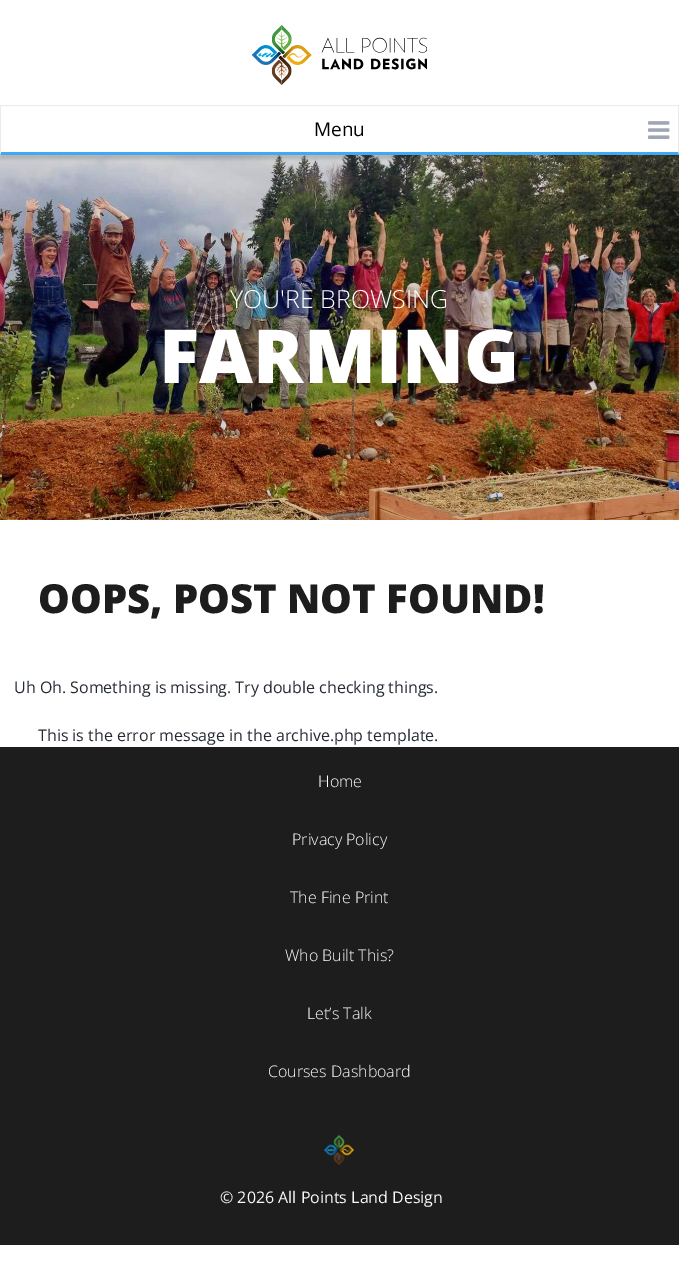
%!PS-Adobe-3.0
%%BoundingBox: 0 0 679 1271
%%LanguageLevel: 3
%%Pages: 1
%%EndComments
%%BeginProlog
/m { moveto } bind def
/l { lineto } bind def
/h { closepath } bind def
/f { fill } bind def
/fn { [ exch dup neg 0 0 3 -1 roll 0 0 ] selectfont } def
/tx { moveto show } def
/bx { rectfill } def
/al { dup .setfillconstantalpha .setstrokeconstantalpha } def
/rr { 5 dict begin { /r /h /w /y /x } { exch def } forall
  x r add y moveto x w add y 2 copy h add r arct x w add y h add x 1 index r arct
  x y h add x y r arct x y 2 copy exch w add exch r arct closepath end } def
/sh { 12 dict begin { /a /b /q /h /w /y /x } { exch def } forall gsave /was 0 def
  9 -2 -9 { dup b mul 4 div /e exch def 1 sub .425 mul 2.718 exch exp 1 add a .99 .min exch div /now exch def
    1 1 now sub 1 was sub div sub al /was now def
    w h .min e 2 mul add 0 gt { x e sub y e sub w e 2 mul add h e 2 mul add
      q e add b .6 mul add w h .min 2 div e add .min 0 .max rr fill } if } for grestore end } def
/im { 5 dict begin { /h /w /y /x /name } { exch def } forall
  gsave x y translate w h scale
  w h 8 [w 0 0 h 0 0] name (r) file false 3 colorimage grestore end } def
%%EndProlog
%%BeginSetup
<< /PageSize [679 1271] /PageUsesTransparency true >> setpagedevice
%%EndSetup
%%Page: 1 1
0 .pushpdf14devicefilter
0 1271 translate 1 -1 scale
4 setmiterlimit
1 setgray
0 0 679 1271 bx
(image0.raw) 252 25 175 60 im
(image2.raw) 0 155 679 365 im
0 setgray
0 109 679 50 0 1.5 0.15 sh
1 setgray
0 107 679 48 bx
0.914 0.925 0.937 setrgbcolor
0 105 679 1 bx
679 105 m 679 155 l 678 152 l 678 106 l h f
0.247 0.663 0.957 setrgbcolor
679 155 m 0 155 l 1 152 l 678 152 l h f
0.914 0.925 0.937 setrgbcolor
0 155 m 0 105 l 1 106 l 1 152 l h f
/OpenSans-Regular 19 fn
0 setgray
(Menu) 314 136 tx
(image1.raw) 648 121 22 18 im
/OpenSans-Light 25 fn
1 setgray
(YOU'RE BROWSING) 230 308 tx
/OpenSans-ExtraBold 74.5 fn
(FARMING) 159 383 tx
/OpenSans-ExtraBold 40 fn
0.114 setgray
(OOPS, POST NOT FOUND!) 38 613 tx
/OpenSans-Regular 16 fn
0.141 0.165 0.2 setrgbcolor
(Uh Oh. Something is missing. Try double checking things.) 14 693 tx
(This is the error message in the archive.php template.) 38 741 tx
0.114 setgray
0 747 679 498 bx
/OpenSans-Light 16 fn
1 setgray
(Home) 318 787 tx
(Privacy Policy) 292 845 tx
(The Fine Print) 290 903 tx
(Who Built This?) 285 961 tx
(Let’s Talk) 307 1019 tx
(Courses Dashboard) 268 1077 tx
(image3.raw) 324 1135 30 30 im
/OpenSans-Regular 16 fn
0.973 0.976 0.98 setrgbcolor
(© 2026 All Points Land Design) 220 1203 tx
.poppdf14devicefilter showpage
%%EOF
